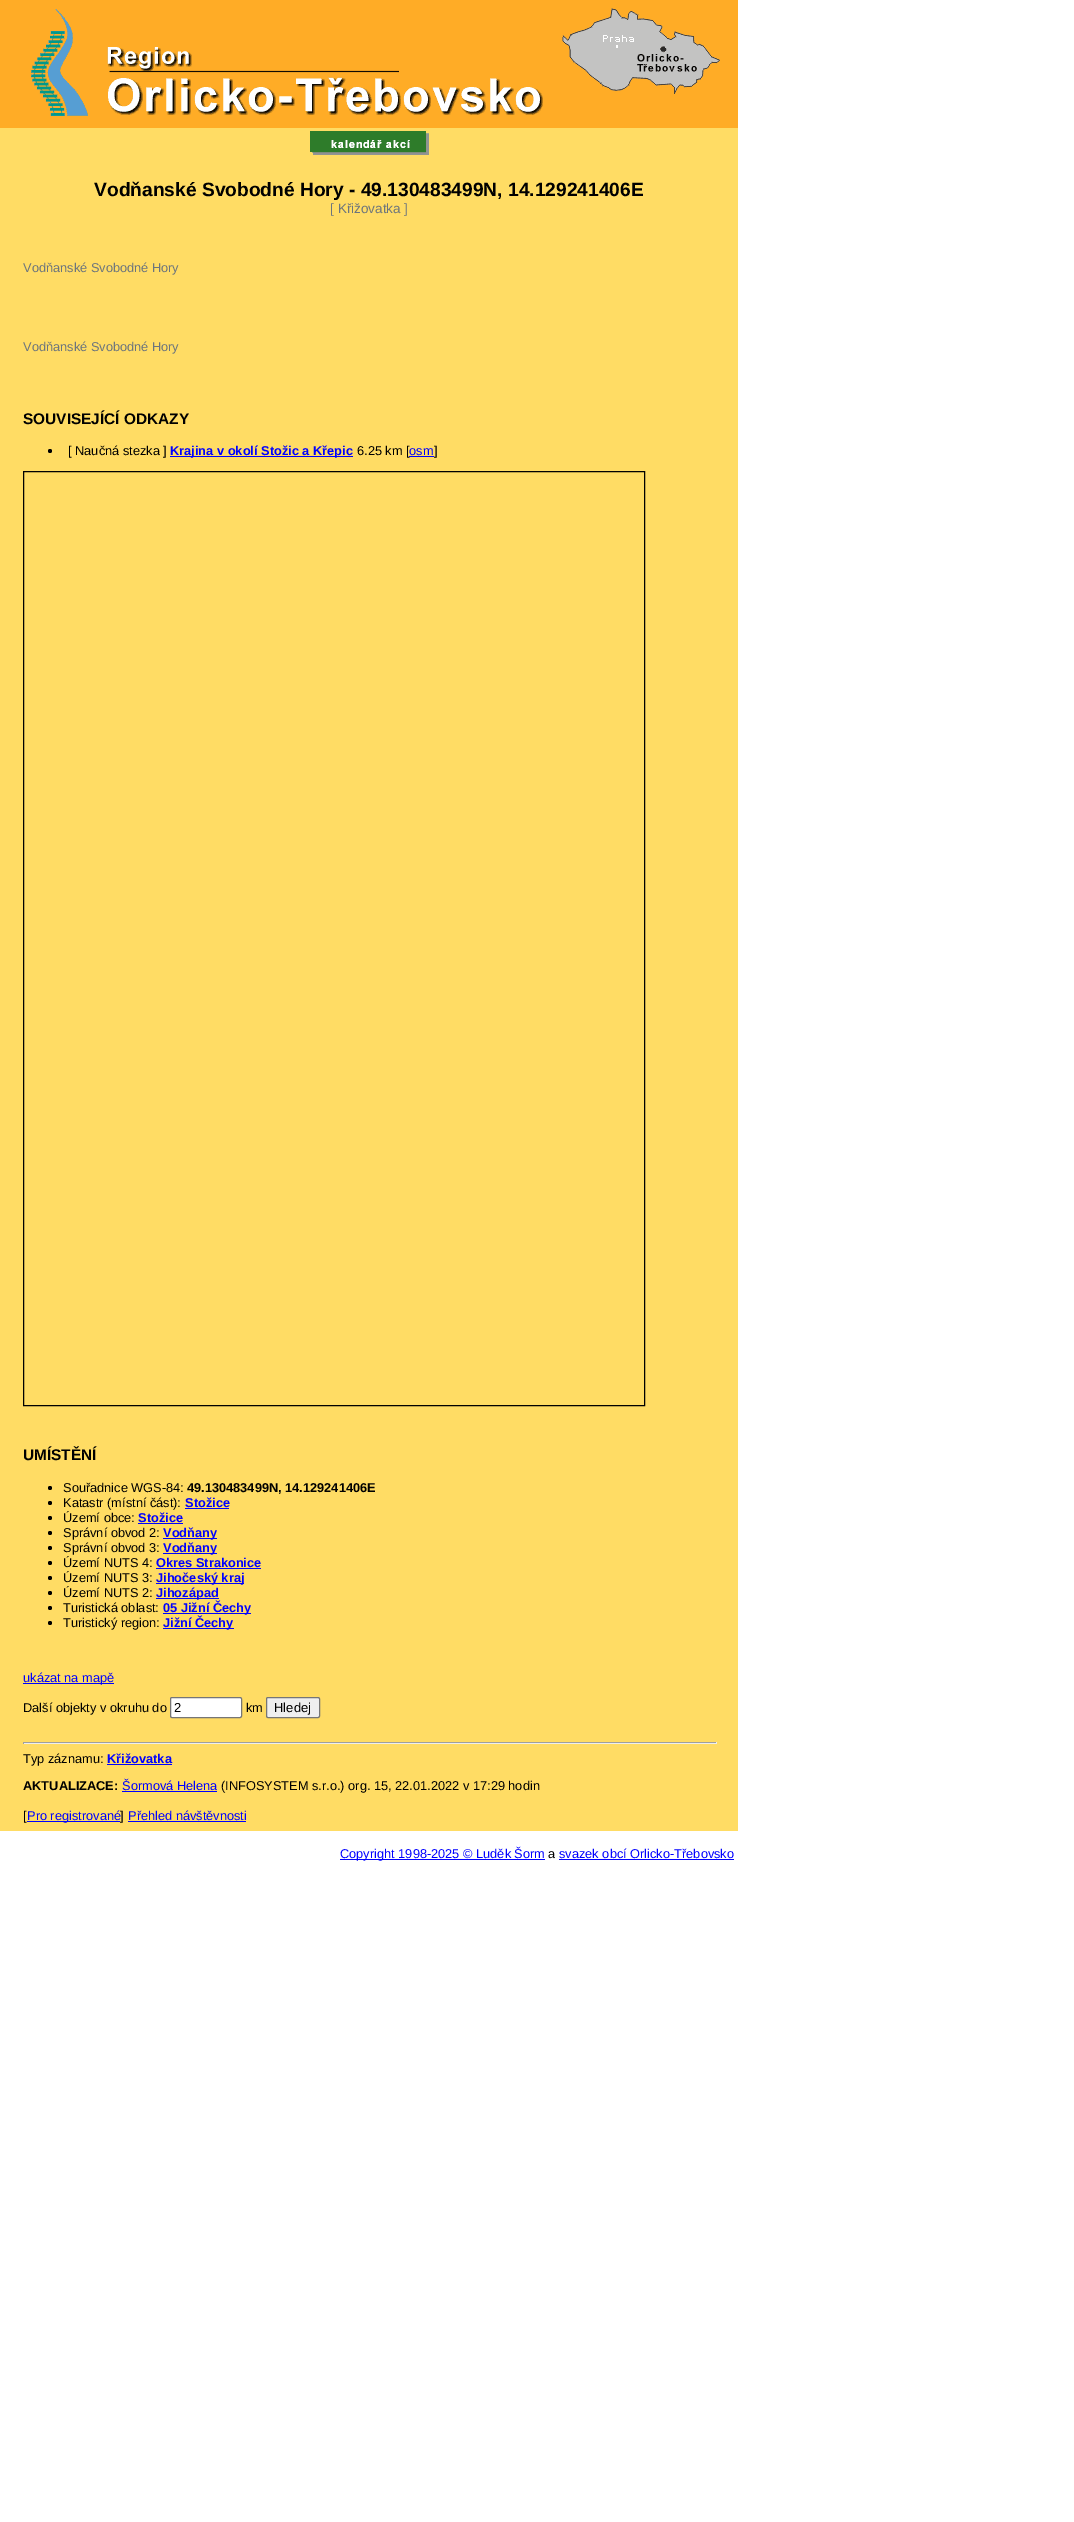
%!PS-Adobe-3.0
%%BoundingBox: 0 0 1074 2522
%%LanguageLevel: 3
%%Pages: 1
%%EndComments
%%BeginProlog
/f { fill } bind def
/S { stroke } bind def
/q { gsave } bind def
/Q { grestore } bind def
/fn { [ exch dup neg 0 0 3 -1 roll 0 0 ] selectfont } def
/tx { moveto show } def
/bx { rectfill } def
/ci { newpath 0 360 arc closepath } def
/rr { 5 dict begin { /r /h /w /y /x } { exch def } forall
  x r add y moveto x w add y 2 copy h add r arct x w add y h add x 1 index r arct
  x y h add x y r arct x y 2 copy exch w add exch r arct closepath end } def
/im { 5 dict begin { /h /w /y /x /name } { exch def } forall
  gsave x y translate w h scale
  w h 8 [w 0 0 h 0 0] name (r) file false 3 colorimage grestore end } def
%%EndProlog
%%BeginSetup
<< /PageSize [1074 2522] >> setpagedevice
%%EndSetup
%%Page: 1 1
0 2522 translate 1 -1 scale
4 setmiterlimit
1 setgray
0 0 1074 2522 bx
1 0.675 0.149 setrgbcolor
0 0 738 128 bx
(image0.raw) 31 9 57 107 im
(image1.raw) 107 47 436 68 im
(image2.raw) 562 8 158 86 im
1 0.863 0.392 setrgbcolor
0 128 738 1703 bx
(image3.raw) 310 131 119 24 im
/LiberationSans-Bold 19.2 fn
0 setgray
(Vodňanské Svobodné Hory - 49.130483499N, 14.129241406E) 94 196 tx
/LiberationSans-Regular 13.5 fn
0.424 0.459 0.49 setrgbcolor
([ Křižovatka ]) 330 213 tx
/LiberationSans-Regular 12.8 fn
(Vodňanské Svobodné Hory) 23 272 tx
(Vodňanské Svobodné Hory) 23 351 tx
/LiberationSans-Bold 15.4 fn
0 setgray
(SOUVISEJÍCÍ ODKAZY) 23 424 tx
50 451 2 ci f
/LiberationSans-Regular 12.8 fn
([ Naučná stezka ]) 68 455 tx
0 0 1 setrgbcolor
170 456 183 1 bx
/LiberationSans-Bold 12.8 fn
(Krajina v okolí Stožic a Křepic) 170 455 tx
/LiberationSans-Regular 12.8 fn
0 setgray
(6.25 km [) 357 455 tx
0 0 1 setrgbcolor
(osm) 409 455 tx
409 456 25 1 bx
0 setgray
(]) 434 455 tx
23.5 471.5 621 934 rectstroke
/LiberationSans-Bold 15.4 fn
(UMÍSTĚNÍ) 23 1460 tx
50 1488 2 ci f
/LiberationSans-Regular 12.8 fn
(Souřadnice WGS-84:) 63 1492 tx
/LiberationSans-Bold 12.8 fn
(49.130483499N, 14.129241406E) 187 1492 tx
50 1503 2 ci f
/LiberationSans-Regular 12.8 fn
(Katastr \(místní část\):) 63 1507 tx
/LiberationSans-Bold 12.8 fn
0 0 1 setrgbcolor
(Stožice) 185 1507 tx
185 1508 44 1 bx
0 setgray
50 1518 2 ci f
/LiberationSans-Regular 12.8 fn
(Území obce:) 63 1522 tx
/LiberationSans-Bold 12.8 fn
0 0 1 setrgbcolor
(Stožice) 138 1522 tx
138 1523 45 1 bx
0 setgray
50 1533 2 ci f
/LiberationSans-Regular 12.8 fn
(Správní obvod 2:) 63 1537 tx
0 0 1 setrgbcolor
163 1538 54 1 bx
/LiberationSans-Bold 12.8 fn
(Vodňany) 163 1537 tx
0 setgray
50 1548 2 ci f
/LiberationSans-Regular 12.8 fn
(Správní obvod 3:) 63 1552 tx
0 0 1 setrgbcolor
163 1553 54 1 bx
/LiberationSans-Bold 12.8 fn
(Vodňany) 163 1552 tx
0 setgray
50 1563 2 ci f
/LiberationSans-Regular 12.8 fn
(Území NUTS 4:) 63 1567 tx
/LiberationSans-Bold 12.8 fn
0 0 1 setrgbcolor
(Okres Strakonice) 156 1567 tx
156 1568 105 1 bx
0 setgray
50 1578 2 ci f
/LiberationSans-Regular 12.8 fn
(Území NUTS 3:) 63 1582 tx
0 0 1 setrgbcolor
156 1583 88 1 bx
/LiberationSans-Bold 12.8 fn
(Jihočeský kraj) 156 1582 tx
0 setgray
50 1593 2 ci f
/LiberationSans-Regular 12.8 fn
(Území NUTS 2:) 63 1597 tx
0 0 1 setrgbcolor
156 1598 63 1 bx
/LiberationSans-Bold 12.8 fn
(Jihozápad) 156 1597 tx
0 setgray
50 1608 2 ci f
/LiberationSans-Regular 12.8 fn
(Turistická oblast:) 63 1612 tx
0 0 1 setrgbcolor
163 1613 88 1 bx
/LiberationSans-Bold 12.8 fn
(05 Jižní Čechy) 163 1612 tx
0 setgray
50 1623 2 ci f
/LiberationSans-Regular 12.8 fn
(Turistický region:) 63 1627 tx
0 0 1 setrgbcolor
163 1628 71 1 bx
/LiberationSans-Bold 12.8 fn
(Jižní Čechy) 163 1627 tx
23 1683 91 1 bx
/LiberationSans-Regular 12.8 fn
(ukázat na mapě) 23 1682 tx
0 setgray
(Další objekty v okruhu do) 23 1712 tx
1 setgray
170.5 1697.5 71 20 1.5 rr q f Q
0.463 setgray
S
/LiberationSans-Regular 13 fn
0 setgray
(2) 174 1712 tx
/LiberationSans-Regular 12.8 fn
(km) 246 1712 tx
0.937 setgray
266.5 1697.5 53 20 1.5 rr q f Q
0.463 setgray
S
/LiberationSans-Regular 13 fn
0 setgray
(Hledej) 274 1712 tx
0.624 setgray
23 1742 694 1 bx
0.933 setgray
716 1742 1 2 bx
23 1743 694 1 bx
0.624 setgray
23 1742 1 2 bx
/LiberationSans-Regular 12.8 fn
0 setgray
(Typ záznamu:) 23 1763 tx
/LiberationSans-Bold 12.8 fn
0 0 1 setrgbcolor
(Křižovatka) 107 1763 tx
107 1764 65 1 bx
0 setgray
(AKTUALIZACE:) 23 1790 tx
/LiberationSans-Regular 12.8 fn
0 0 1 setrgbcolor
(Šormová Helena) 122 1790 tx
122 1791 95 1 bx
0 setgray
(\(INFOSYSTEM s.r.o.\) org. 15, 22.01.2022 v 17:29 hodin) 221 1790 tx
([) 23 1820 tx
0 0 1 setrgbcolor
27 1821 93 1 bx
(Pro registrované) 27 1820 tx
0 setgray
(]) 120 1820 tx
0 0 1 setrgbcolor
(Přehled návštěvnosti) 128 1820 tx
128 1821 118 1 bx
340 1859 205 1 bx
(Copyright 1998-2025 © Luděk Šorm) 340 1858 tx
0 setgray
(a) 548 1858 tx
0 0 1 setrgbcolor
559 1859 175 1 bx
(svazek obcí Orlicko-Třebovsko) 559 1858 tx
showpage
%%EOF
